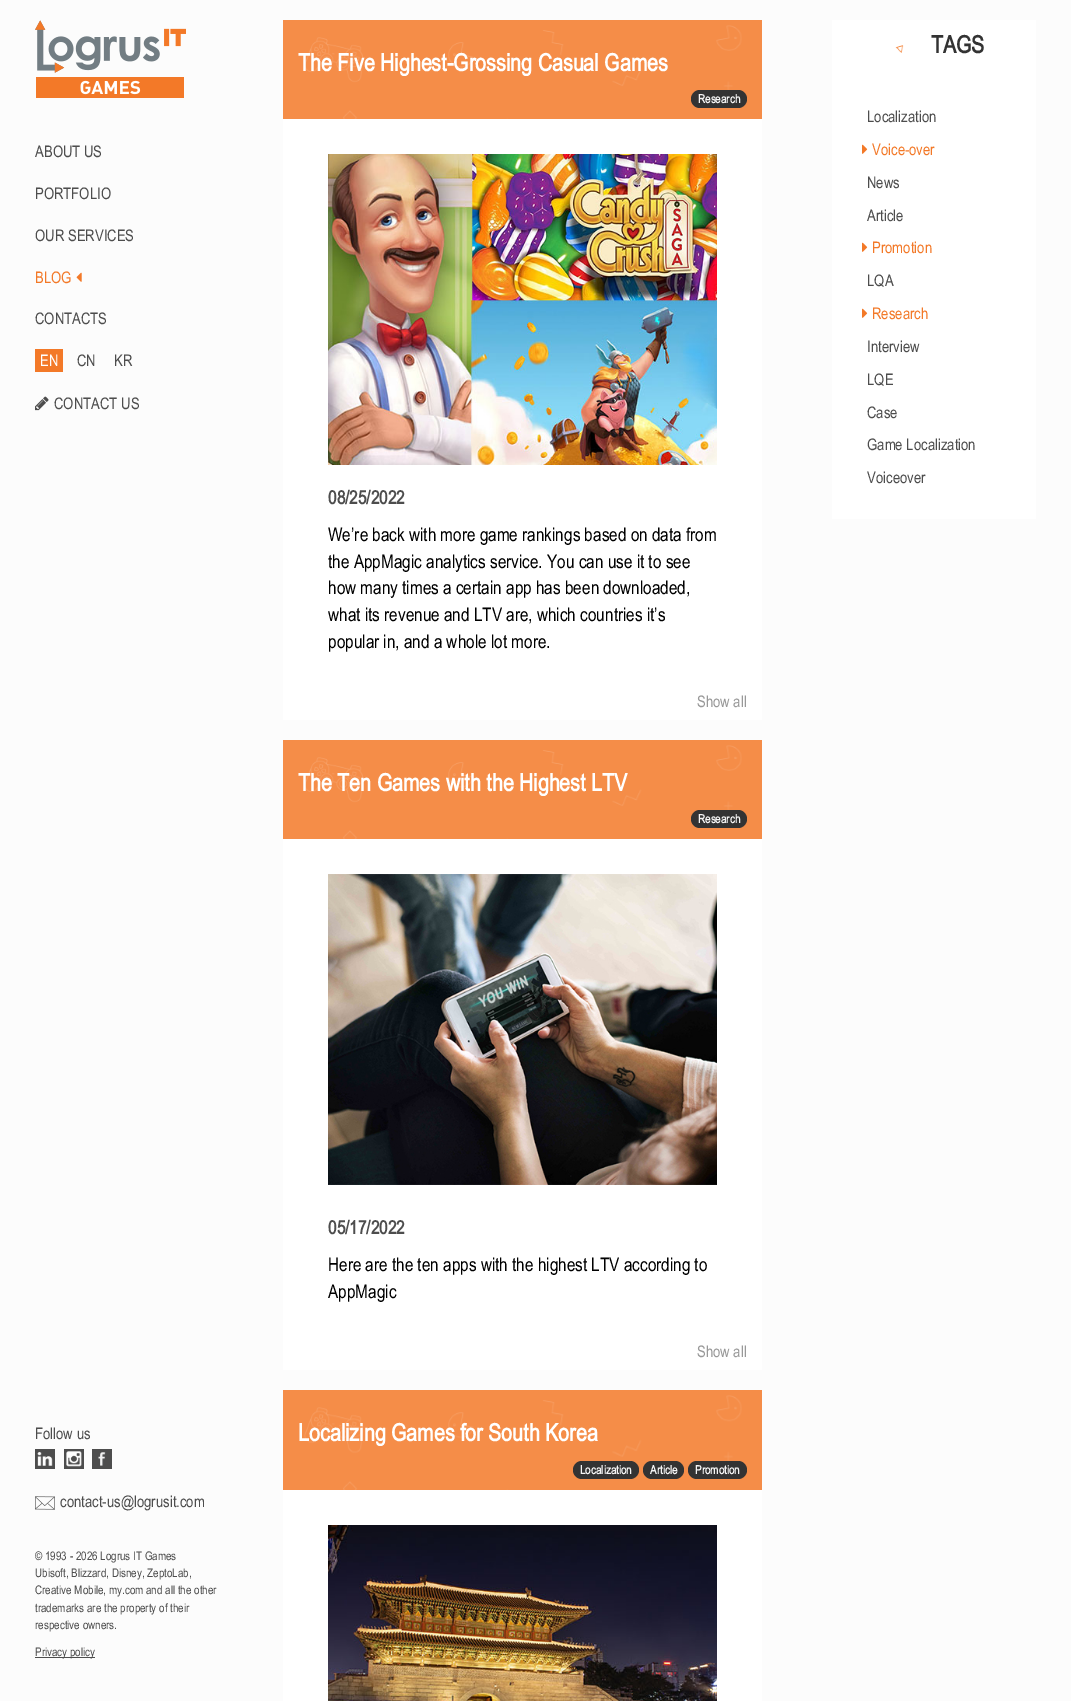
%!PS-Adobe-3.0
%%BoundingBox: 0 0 1071 1701
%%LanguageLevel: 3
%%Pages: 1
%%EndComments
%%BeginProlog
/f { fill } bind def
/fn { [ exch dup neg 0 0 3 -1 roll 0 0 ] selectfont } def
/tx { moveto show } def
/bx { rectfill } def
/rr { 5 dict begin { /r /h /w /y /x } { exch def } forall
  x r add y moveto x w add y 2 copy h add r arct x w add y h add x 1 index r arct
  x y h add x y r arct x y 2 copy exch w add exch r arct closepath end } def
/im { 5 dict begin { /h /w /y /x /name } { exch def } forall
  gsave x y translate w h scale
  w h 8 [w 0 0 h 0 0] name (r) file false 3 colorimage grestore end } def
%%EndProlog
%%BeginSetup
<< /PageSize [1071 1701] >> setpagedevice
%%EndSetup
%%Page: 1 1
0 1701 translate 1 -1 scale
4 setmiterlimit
0.988 setgray
0 0 1071 1701 bx
(image0.raw) 35 20 151 78 im
/Arial-Regular 16 fn
0.302 setgray
(ABOUT US) 35 157 tx
(PORTFOLIO) 35 199 tx
(OUR SERVICES) 35 241 tx
0.953 0.475 0.157 setrgbcolor
(BLOG) 35 283 tx
(image1.raw) 76 272 6 10 im
0.302 setgray
(CONTACTS) 35 324 tx
0.953 0.475 0.157 setrgbcolor
35 349 28 23 bx
1 setgray
(EN) 40 366 tx
0.302 setgray
(CN) 77 366 tx
(KR) 114 366 tx
(image2.raw) 35 396 14 15 im
(CONTACT US) 54 409 tx
(Follow us) 35 1439 tx
(image3.raw) 35 1449 20 20 im
(image4.raw) 64 1449 20 20 im
(image5.raw) 92 1449 20 20 im
(image6.raw) 35 1496 20 14 im
(contact-us@logrusit.com) 60 1507 tx
/Arial-Regular 12 fn
(© 1993 - 2026 Logrus IT Games) 35 1560 tx
(Ubisoft, Blizzard, Disney, ZeptoLab,) 35 1577 tx
(Creative Mobile, my.com and all the other) 35 1594 tx
(trademarks are the property of their) 35 1612 tx
(respective owners.) 35 1629 tx
35 1657 60 1 bx
(Privacy policy) 35 1656 tx
1 setgray
283 119 479 601 bx
0.961 0.553 0.282 setrgbcolor
283 20 479 99 bx
(image7.raw) 304 25 438 94 im
/Arial-Bold 24 fn
1 setgray
(The Five Highest-Grossing Casual Games) 298 71 tx
0.2 setgray
691 90 56 18 9 rr f
/Arial-Bold 12 fn
0.961 setgray
(Research) 698 103 tx
(image8.raw) 328 154 389 311 im
/Arial-Bold 18.7 fn
0.302 setgray
(08/25/2022) 328 504 tx
/Arial-Regular 18.7 fn
0 setgray
(We’re back with more game rankings based on data from) 328 541 tx
(the AppMagic analytics service. You can use it to see) 328 568 tx
(how many times a certain app has been downloaded,) 328 594 tx
(what its revenue and LTV are, which countries it’s) 328 621 tx
(popular in, and a whole lot more.) 328 648 tx
/Arial-Regular 16 fn
0.6 setgray
(Show all) 697 707 tx
1 setgray
283 839 479 531 bx
0.961 0.553 0.282 setrgbcolor
283 740 479 99 bx
(image7.raw) 304 745 438 94 im
/Arial-Bold 24 fn
1 setgray
(The Ten Games with the Highest LTV) 298 791 tx
0.2 setgray
691 810 56 18 9 rr f
/Arial-Bold 12 fn
0.961 setgray
(Research) 698 823 tx
(image9.raw) 328 874 389 311 im
/Arial-Bold 18.7 fn
0.302 setgray
(05/17/2022) 328 1234 tx
/Arial-Regular 18.7 fn
0 setgray
(Here are the ten apps with the highest LTV according to) 328 1271 tx
(AppMagic) 328 1298 tx
/Arial-Regular 16 fn
0.6 setgray
(Show all) 697 1357 tx
1 setgray
283 1490 479 211 bx
0.961 0.553 0.282 setrgbcolor
283 1390 479 100 bx
(image10.raw) 304 1395 438 95 im
/Arial-Bold 24 fn
1 setgray
(Localizing Games for South Korea) 298 1441 tx
0.2 setgray
573 1461 66 18 9 rr f
/Arial-Bold 12 fn
0.961 setgray
(Localization) 580 1474 tx
0.2 setgray
643 1461 41 18 9 rr f
0.961 setgray
(Article) 650 1474 tx
0.2 setgray
688 1461 59 18 9 rr f
0.961 setgray
(Promotion) 695 1474 tx
(image11.raw) 328 1525 389 176 im
1 setgray
832 20 204 499 bx
(image12.raw) 895 45 9 8 im
/Arial-Bold 24 fn
0.2 setgray
(TAGS) 931 53 tx
/Arial-Regular 16 fn
0.302 setgray
(Localization) 867 122 tx
(image13.raw) 862 144 6 10 im
0.953 0.475 0.157 setrgbcolor
(Voice-over) 872 155 tx
0.302 setgray
(News) 867 188 tx
(Article) 867 221 tx
(image13.raw) 862 242 6 10 im
0.953 0.475 0.157 setrgbcolor
(Promotion) 872 253 tx
0.302 setgray
(LQA) 867 286 tx
(image13.raw) 862 308 6 10 im
0.953 0.475 0.157 setrgbcolor
(Research) 872 319 tx
0.302 setgray
(Interview) 867 352 tx
(LQE) 867 385 tx
(Case) 867 418 tx
(Game Localization) 867 450 tx
(Voiceover) 867 483 tx
showpage
%%EOF
